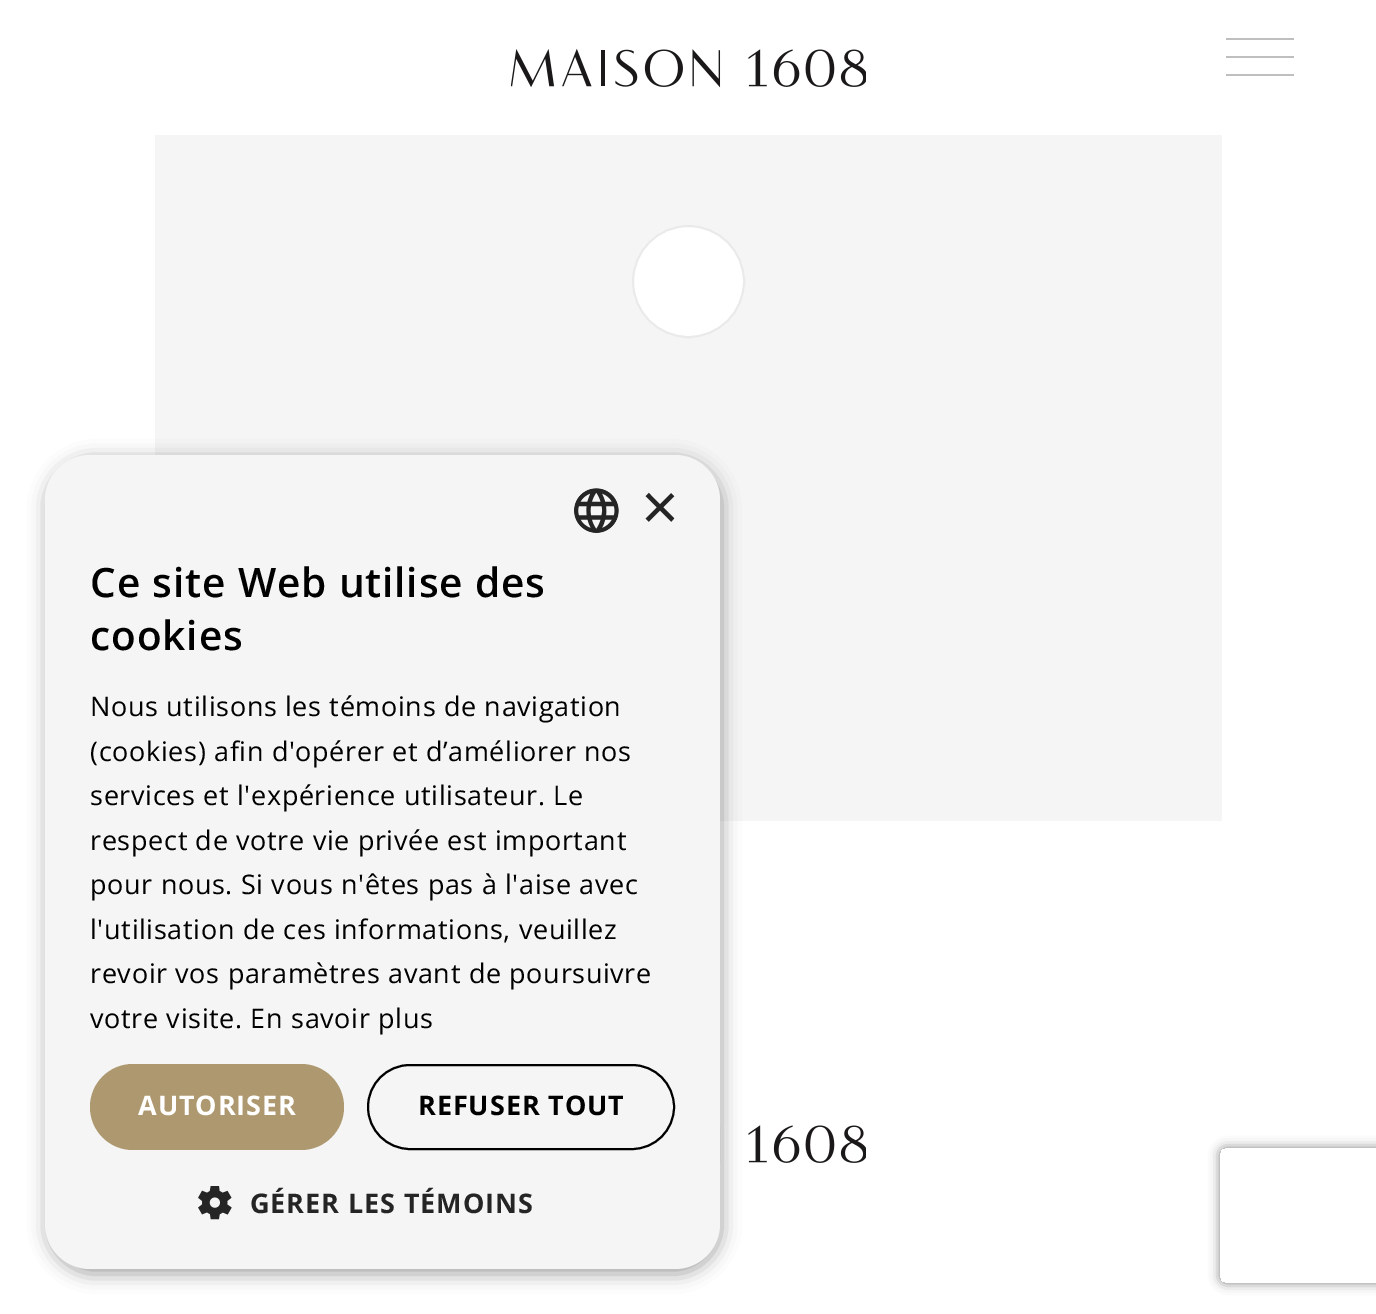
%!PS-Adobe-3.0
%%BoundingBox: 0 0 1376 1314
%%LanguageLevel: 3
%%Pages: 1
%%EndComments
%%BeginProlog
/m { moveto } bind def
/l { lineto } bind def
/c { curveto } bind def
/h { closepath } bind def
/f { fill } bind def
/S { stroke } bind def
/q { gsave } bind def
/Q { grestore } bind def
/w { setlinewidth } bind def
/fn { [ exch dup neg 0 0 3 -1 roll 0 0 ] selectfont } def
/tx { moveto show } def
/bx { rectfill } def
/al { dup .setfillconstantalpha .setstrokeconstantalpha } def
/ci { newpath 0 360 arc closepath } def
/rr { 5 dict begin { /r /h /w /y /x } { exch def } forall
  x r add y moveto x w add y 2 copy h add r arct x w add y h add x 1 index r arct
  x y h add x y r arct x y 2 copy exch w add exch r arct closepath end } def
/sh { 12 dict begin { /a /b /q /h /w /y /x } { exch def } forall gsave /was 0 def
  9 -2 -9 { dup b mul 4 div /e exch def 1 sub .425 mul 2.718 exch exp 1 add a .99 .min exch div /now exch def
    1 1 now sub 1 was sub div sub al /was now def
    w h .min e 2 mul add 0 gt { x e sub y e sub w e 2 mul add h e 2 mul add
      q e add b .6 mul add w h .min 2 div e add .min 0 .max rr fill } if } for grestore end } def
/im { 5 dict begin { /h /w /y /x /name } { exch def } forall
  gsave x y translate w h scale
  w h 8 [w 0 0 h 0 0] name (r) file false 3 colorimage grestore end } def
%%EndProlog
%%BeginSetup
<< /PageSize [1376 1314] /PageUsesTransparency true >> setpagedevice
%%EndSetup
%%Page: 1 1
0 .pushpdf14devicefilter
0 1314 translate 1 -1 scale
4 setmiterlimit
1 setgray
0 0 1376 1314 bx
(image0.raw) 511 48 355 40 im
0.749 setgray
1226 38 68 2 bx
1226 56 68 2 bx
1226 74 68 2 bx
0.961 setgray
155 135 1067 686 bx
1 setgray
688.5 281.5 56.5 ci f
0.2 al
0.588 setgray
2 w
688.5 281.5 55.5 ci S
1 al
(image3.raw) 720 1125 146 38 im
0 setgray
47 459 675 815 45 9 0.35 sh
0.961 setgray
45 455 675 814 45 rr f
(image1.raw) 574 488 45 45 im
/LiberationSans-Regular 65 fn
0.145 setgray
(×) 641 529 tx
/OpenSans-SemiBold 40.5 fn
0 setgray
90 597 m 0.9 0 (Ce site Web utilise des) ashow
90 650 m 0.9 0 (cookies) ashow
/OpenSans-Regular 27 fn
90 716 m 0.65 0 (Nous utilisons les témoins de navigation) ashow
90 761 m 0.65 0 (\(cookies\) afin d'opérer et d’améliorer nos) ashow
90 805 m 0.65 0 (services et l'expérience utilisateur. Le) ashow
90 850 m 0.65 0 (respect de votre vie privée est important) ashow
90 894 m 0.65 0 (pour nous. Si vous n'êtes pas à l'aise avec) ashow
90 939 m 0.65 0 (l'utilisation de ces informations, veuillez) ashow
90 983 m 0.65 0 (revoir vos paramètres avant de poursuivre) ashow
90 1028 m 0.65 0 (votre visite. En savoir plus) ashow
0.678 0.596 0.435 setrgbcolor
90 1064 254 86 43 rr f
/OpenSans-Bold 27 fn
1 setgray
138 1115 m 0.9 0 (AUTORISER) ashow
0 setgray
368 1065 306 84 42 rr S
418 1115 m 0.9 0 (REFUSER TOUT) ashow
(image2.raw) 198 1186 34 34 im
0.145 setgray
250 1213 m 0.9 0 (GÉRER LES TÉMOINS) ashow
q
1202 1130 m 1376 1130 l 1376 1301 l 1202 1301 l h 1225 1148 m 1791 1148 l 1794 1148 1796 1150 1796 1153 c 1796 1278 l 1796 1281 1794 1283 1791 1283 c 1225 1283 l 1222 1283 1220 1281 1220 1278 c 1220 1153 l 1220 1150 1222 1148 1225 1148 c h eoclip newpath
0.502 setgray
1220 1148 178 135 5 5.5 1 sh
Q
.poppdf14devicefilter showpage
%%EOF
